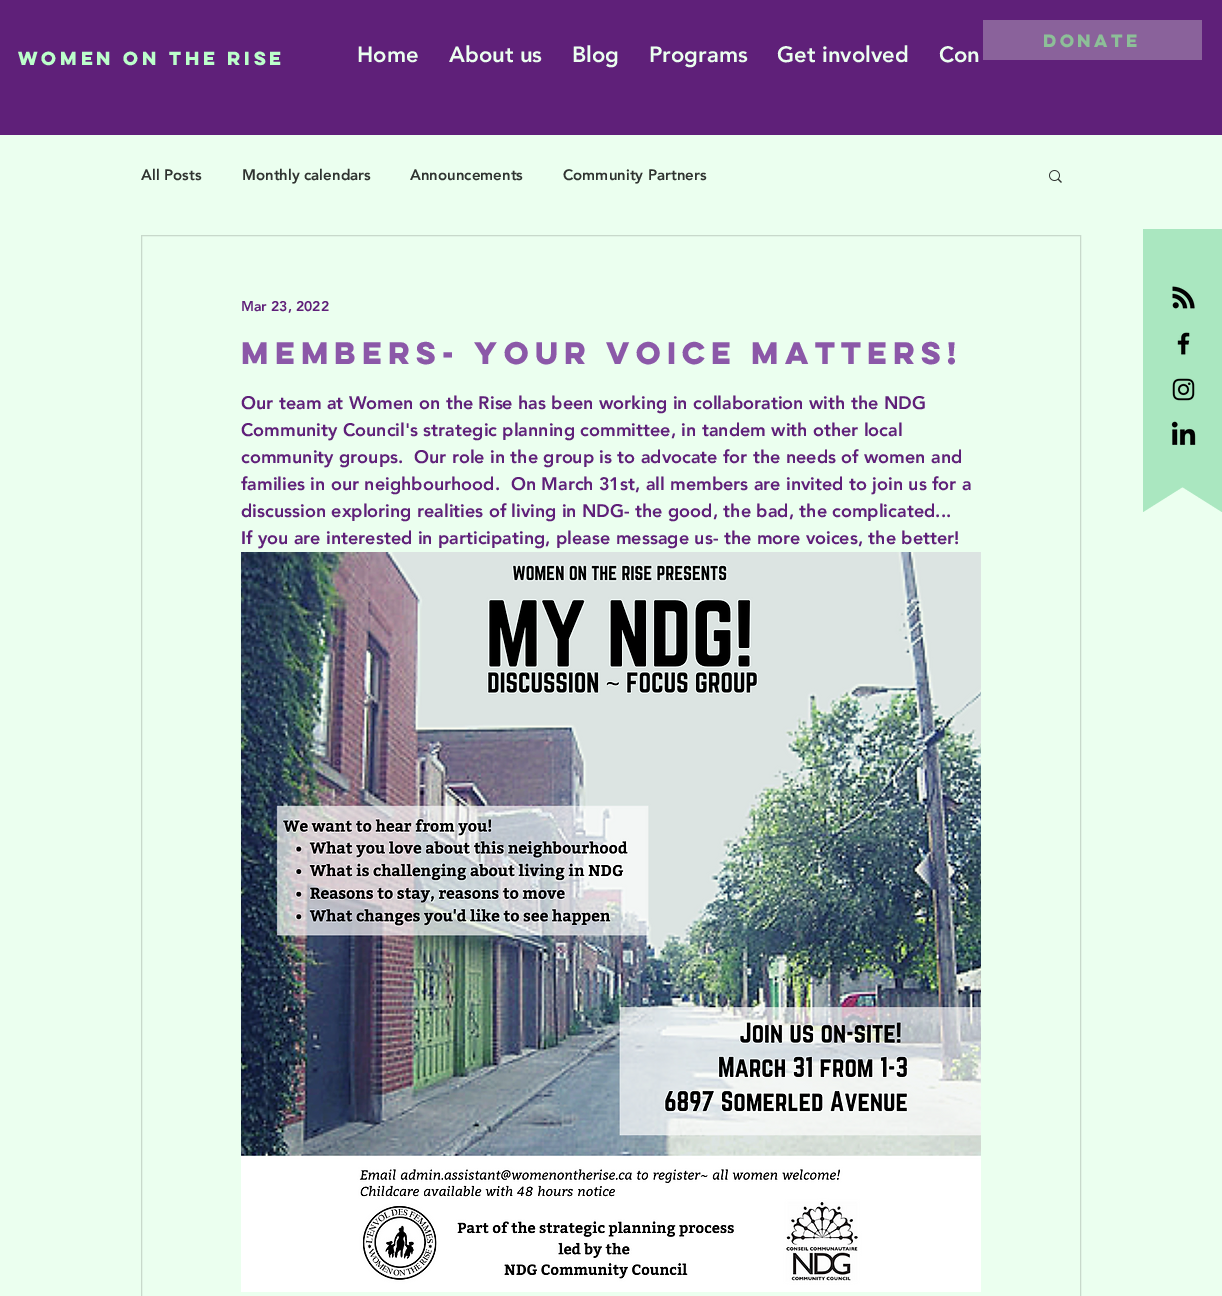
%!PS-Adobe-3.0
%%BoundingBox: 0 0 1222 1296
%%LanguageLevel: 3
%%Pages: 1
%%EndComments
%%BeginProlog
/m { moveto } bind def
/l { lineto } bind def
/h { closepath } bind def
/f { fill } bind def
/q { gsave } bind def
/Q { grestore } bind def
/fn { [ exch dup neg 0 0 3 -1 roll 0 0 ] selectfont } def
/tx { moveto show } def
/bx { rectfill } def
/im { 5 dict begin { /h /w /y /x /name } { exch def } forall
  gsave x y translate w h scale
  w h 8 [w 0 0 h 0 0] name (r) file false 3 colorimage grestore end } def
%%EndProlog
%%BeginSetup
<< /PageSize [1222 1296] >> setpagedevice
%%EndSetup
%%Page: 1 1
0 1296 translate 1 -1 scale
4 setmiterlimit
0.922 1 0.937 setrgbcolor
0 0 1222 1296 bx
0.373 0.125 0.475 setrgbcolor
0 0 1222 135 bx
0.541 0.384 0.608 setrgbcolor
983 20 219 40 bx
/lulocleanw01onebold-Bold 16 fn
0.553 0.749 0.596 setrgbcolor
(DONATE) 1043 47 tx
0.667 0.906 0.753 setrgbcolor
1143 229 79 141 bx
(image0.raw) 1172 286 23 23 im
(image1.raw) 1177 332 13 23 im
q
1143 370 79 142 rectclip
1143 512 m 1143 197 l 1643 197 l h f
1222 197 m 1222 512 l 722 197 l h f
Q
(image2.raw) 1172 378 23 23 im
(image3.raw) 1171 421 25 24 im
/lulocleanw01onebold-Bold 17 fn
0.737 1 0.796 setrgbcolor
(WOMEN ON THE RISE) 18 65 tx
/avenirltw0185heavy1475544-Black 22 fn
0.922 1 0.937 setrgbcolor
(Home) 357 62 tx
(About us) 449 62 tx
(Blog) 572 62 tx
(Programs) 649 62 tx
(Get involved) 777 62 tx
(Con) 939 62 tx
/avenirltw0185heavy1475544-Black 15 fn
0.184 0.2 0.188 setrgbcolor
(All Posts) 141 180 tx
(Monthly calendars) 242 180 tx
(Announcements) 410 180 tx
(Community Partners) 563 180 tx
(image4.raw) 1049 170 13 13 im
0.784 0.851 0.796 setrgbcolor
141.5 235.5 939 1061 rectstroke
/avenirltw0185heavy1475544-Black 14 fn
0.373 0.125 0.475 setrgbcolor
(Mar 23, 2022) 241 311 tx
/lulocleanw01onebold-Bold 28 fn
0.545 0.345 0.659 setrgbcolor
(Members- your voice matters!) 241 364 tx
/avenirltw0185heavy1475544-Black 18 fn
0.373 0.125 0.475 setrgbcolor
(Our team at Women on the Rise has been working in collaboration with the NDG) 241 409 tx
(Community Council's strategic planning committee, in tandem with other local) 241 436 tx
(community groups.  Our role in the group is to advocate for the needs of women and) 241 463 tx
(families in our neighbourhood.  On March 31st, all members are invited to join us for a) 241 490 tx
(discussion exploring realities of living in NDG- the good, the bad, the complicated...) 241 517 tx
(If you are interested in participating, please message us- the more voices, the better!) 241 544 tx
(image5.raw) 241 552 740 740 im
showpage
%%EOF
